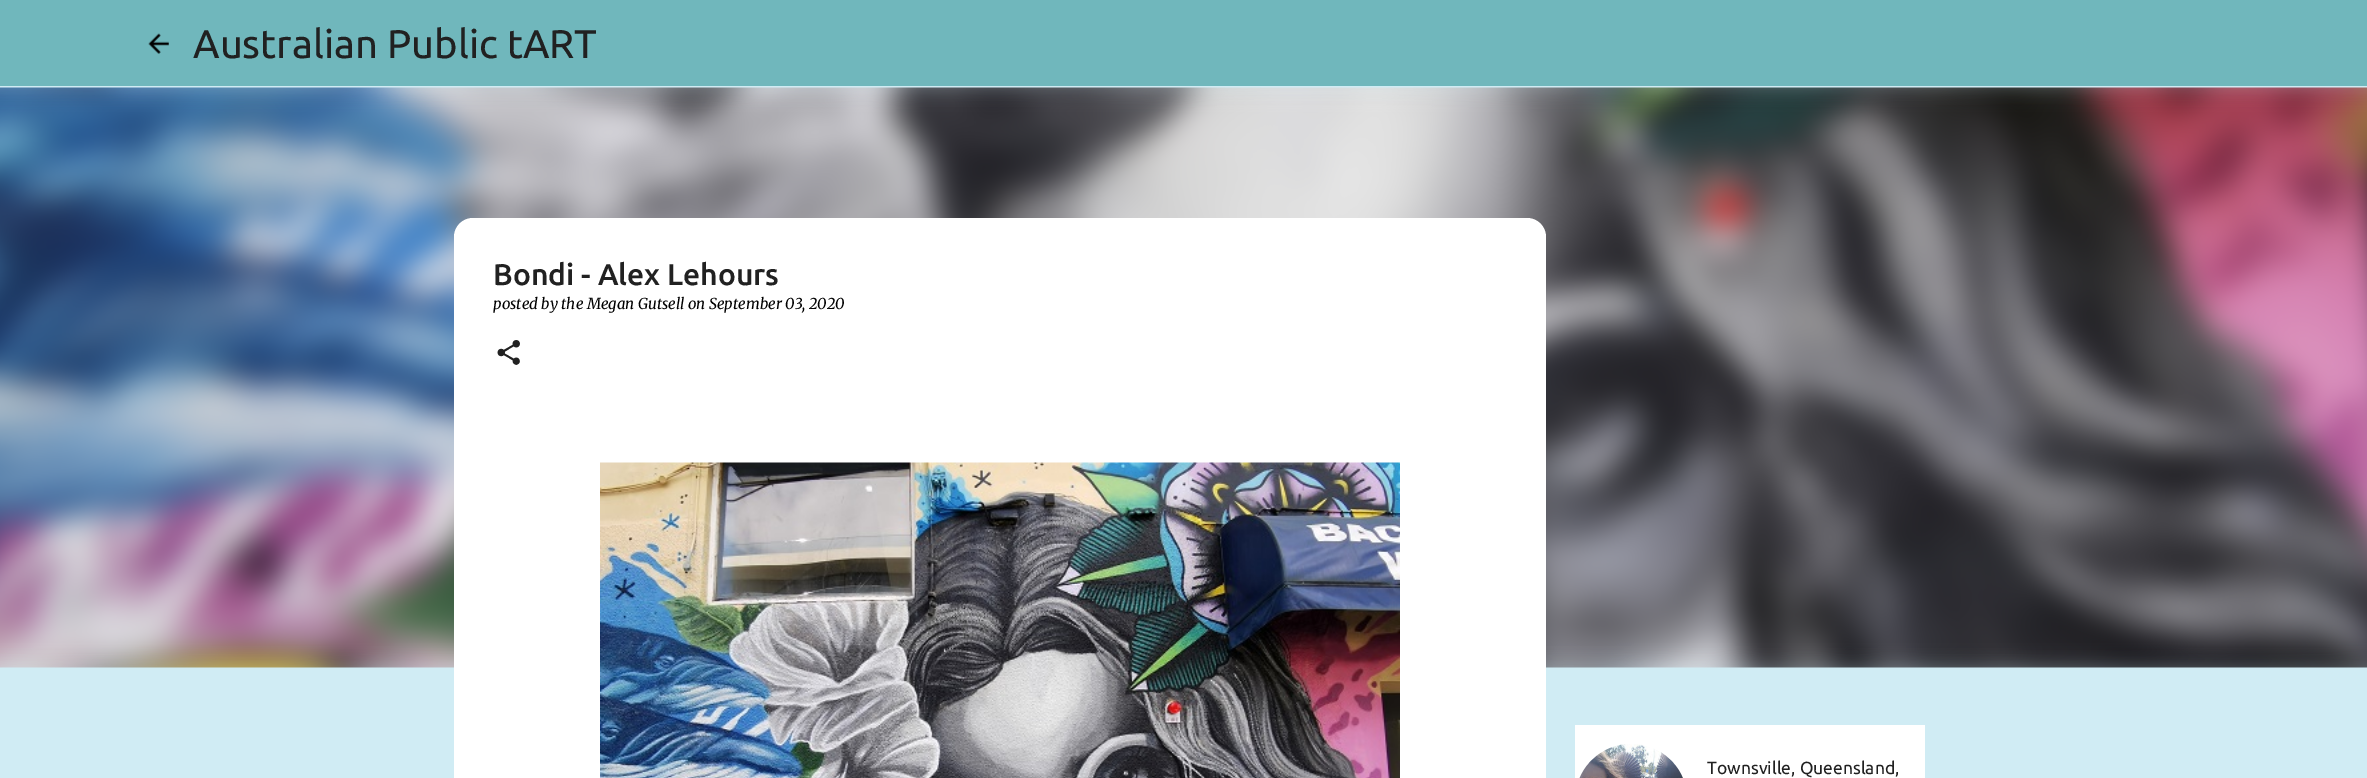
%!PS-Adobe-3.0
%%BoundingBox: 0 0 2367 778
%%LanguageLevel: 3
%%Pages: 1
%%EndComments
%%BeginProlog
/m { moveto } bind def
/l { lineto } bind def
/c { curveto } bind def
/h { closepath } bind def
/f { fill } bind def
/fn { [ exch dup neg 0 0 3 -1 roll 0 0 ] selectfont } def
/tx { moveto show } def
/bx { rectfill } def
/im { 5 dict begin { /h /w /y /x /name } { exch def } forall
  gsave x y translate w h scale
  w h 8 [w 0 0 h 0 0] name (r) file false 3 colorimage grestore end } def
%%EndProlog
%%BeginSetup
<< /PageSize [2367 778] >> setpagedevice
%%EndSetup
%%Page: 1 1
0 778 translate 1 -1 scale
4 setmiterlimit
1 setgray
0 0 2367 778 bx
(image0.raw) 0 86 2367 692 im
0.439 0.718 0.737 setrgbcolor
0 0 2367 86 bx
(image1.raw) 148 33 21 21 im
/Ubuntu-Regular 40 fn
0.129 setgray
(Australian Public tART) 193 58 tx
(image5.raw) 0 87 2367 581 im
1 setgray
473 218 m 1527 218 l 1537.5 218 1546 226.5 1546 237 c 1546 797 l 454 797 l 454 237 l 454 226.5 462.5 218 473 218 c h f
/Ubuntu-Medium 30 fn
0.129 setgray
(Bondi - Alex Lehours) 493 285 tx
/Merriweather-Italic 15 fn
0 setgray
(posted by the Megan Gutsell on September 03, 2020) 493 309 tx
(image2.raw) 497 340 23 25 im
(image3.raw) 600 462 800 316 im
1 setgray
1575 725 350 53 bx
(image4.raw) 1579 744 104 34 im
/Ubuntu-Regular 17.5 fn
0.129 setgray
(Townsville, Queensland,) 1707 774 tx
showpage
%%EOF
